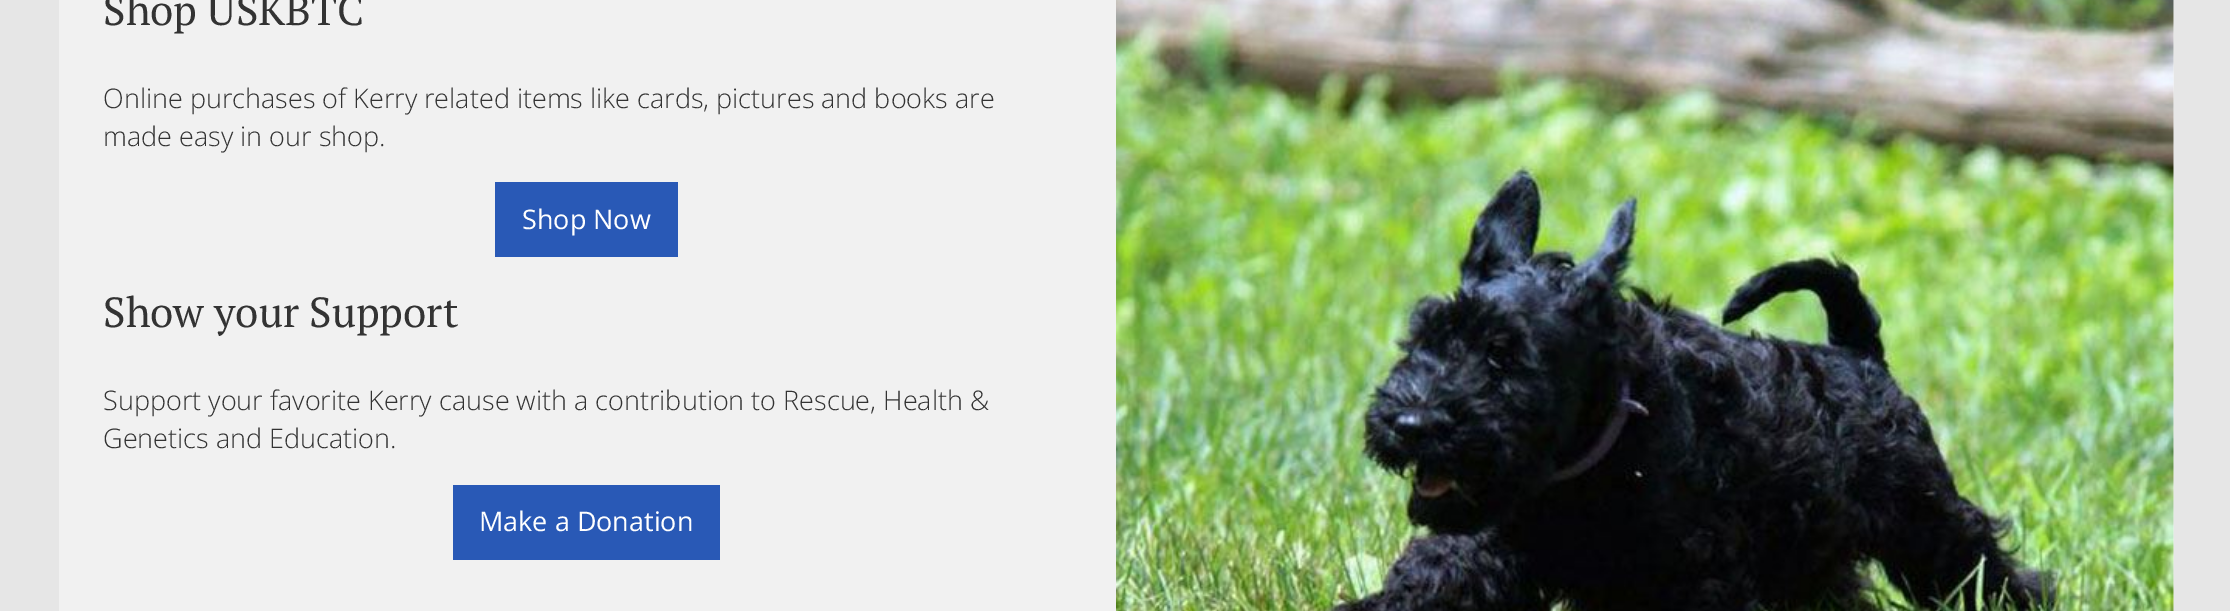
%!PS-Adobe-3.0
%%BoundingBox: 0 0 2230 611
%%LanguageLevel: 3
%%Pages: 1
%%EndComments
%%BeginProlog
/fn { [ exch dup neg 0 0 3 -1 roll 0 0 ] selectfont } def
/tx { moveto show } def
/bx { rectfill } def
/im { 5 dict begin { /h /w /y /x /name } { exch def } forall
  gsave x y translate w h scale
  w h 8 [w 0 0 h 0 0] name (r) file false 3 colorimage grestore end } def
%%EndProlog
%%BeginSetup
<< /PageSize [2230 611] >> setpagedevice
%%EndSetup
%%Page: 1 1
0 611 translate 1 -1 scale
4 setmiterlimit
0.902 setgray
0 0 2230 611 bx
0.945 setgray
59 0 2115 611 bx
/PTSerif-Regular 42 fn
0.2 setgray
(Shop USKBTC) 103 25 tx
/OpenSans-Light 27 fn
(Online purchases of Kerry related items like cards, pictures and books are) 103 108 tx
(made easy in our shop.) 103 146 tx
0.161 0.349 0.714 setrgbcolor
495 182 183 75 bx
/OpenSans-Regular 27 fn
1 setgray
(Shop Now) 522 229 tx
/PTSerif-Regular 42 fn
0.2 setgray
(Show your Support) 103 327 tx
/OpenSans-Light 27 fn
(Support your favorite Kerry cause with a contribution to Rescue, Health &) 103 410 tx
(Genetics and Education.) 103 448 tx
0.161 0.349 0.714 setrgbcolor
453 485 267 75 bx
/OpenSans-Regular 27 fn
1 setgray
(Make a Donation) 479 531 tx
(image0.raw) 1116 0 1058 611 im
showpage
%%EOF
